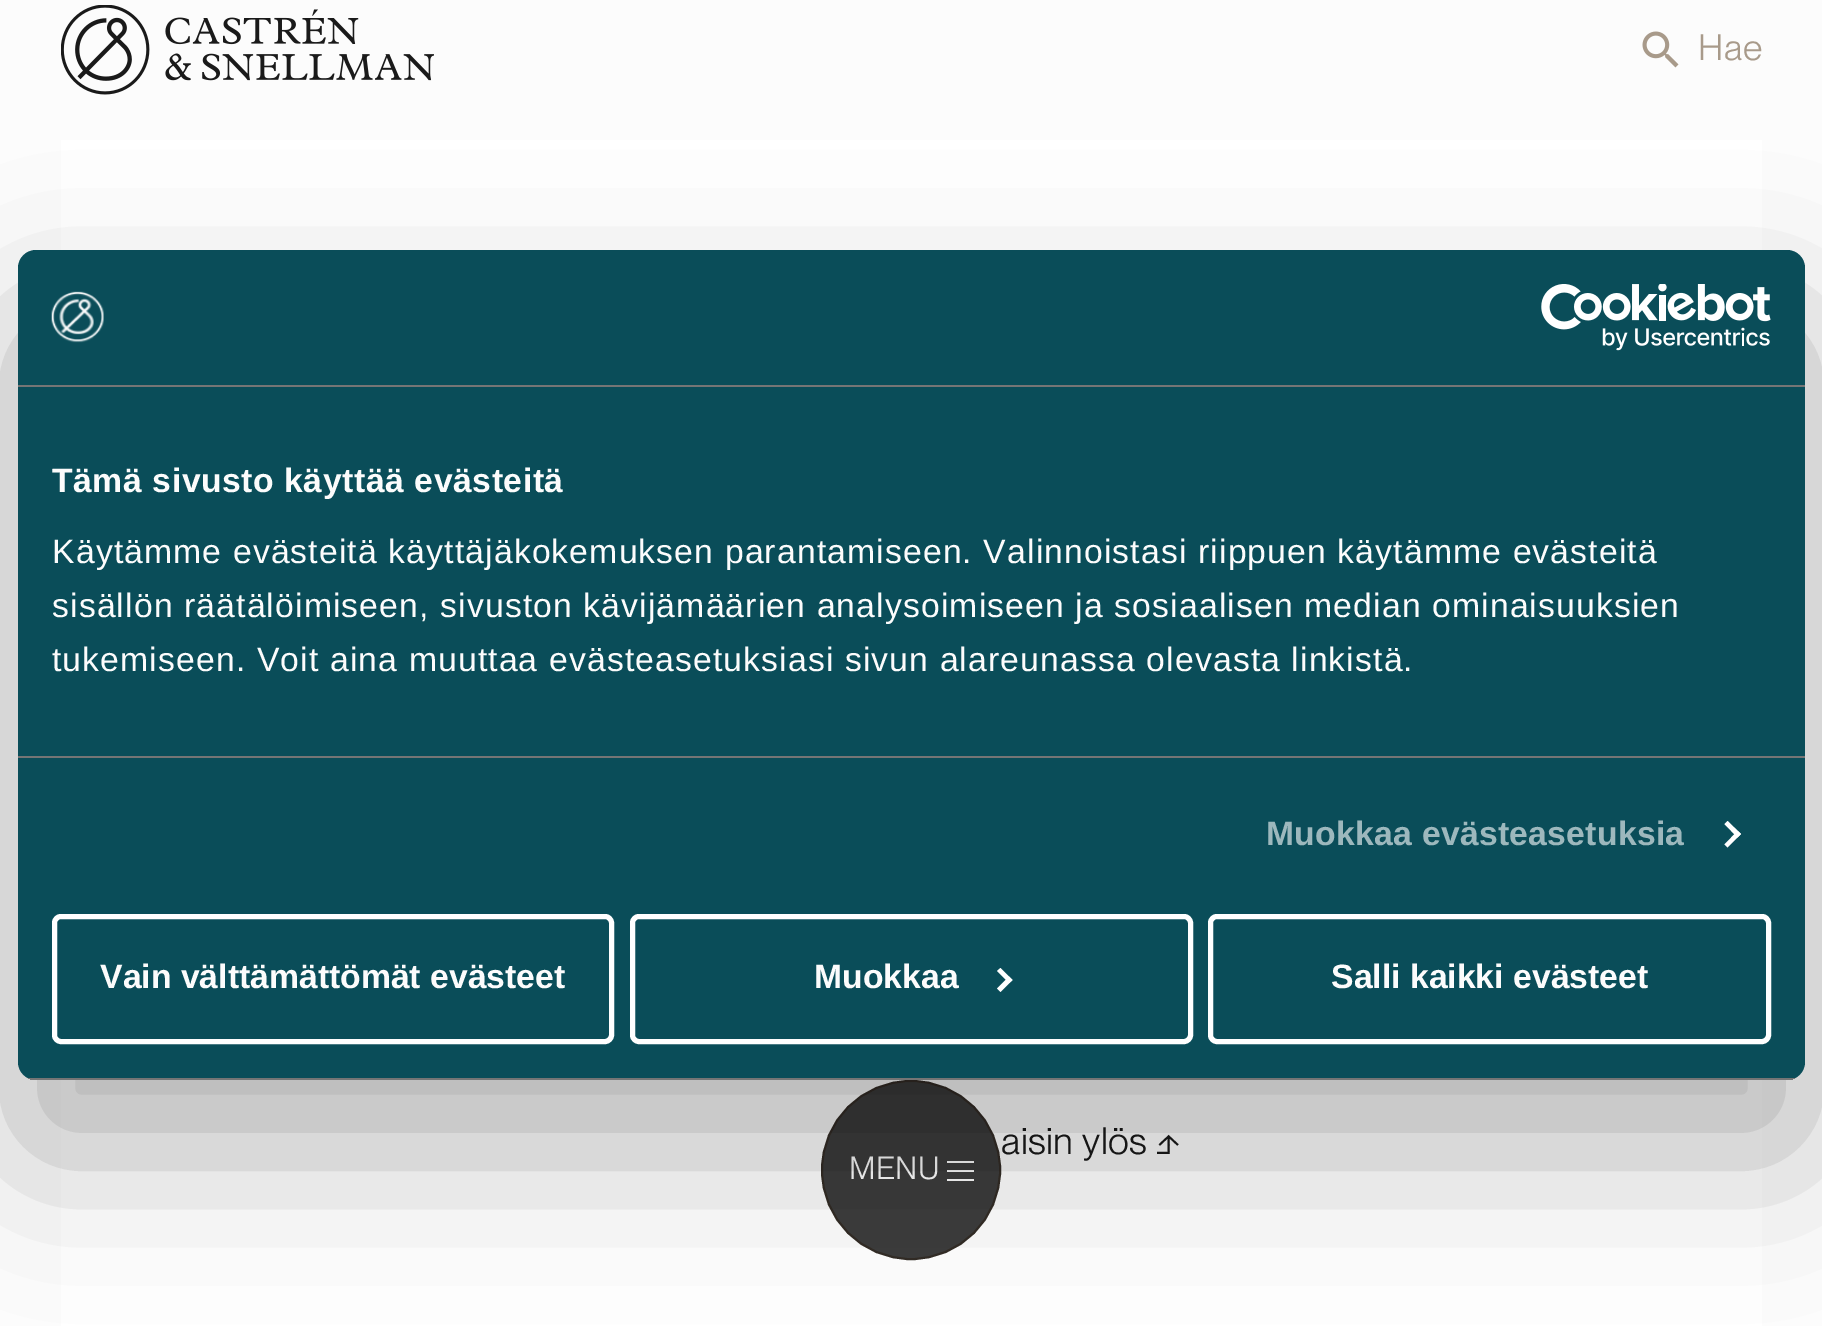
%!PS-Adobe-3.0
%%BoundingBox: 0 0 1822 1326
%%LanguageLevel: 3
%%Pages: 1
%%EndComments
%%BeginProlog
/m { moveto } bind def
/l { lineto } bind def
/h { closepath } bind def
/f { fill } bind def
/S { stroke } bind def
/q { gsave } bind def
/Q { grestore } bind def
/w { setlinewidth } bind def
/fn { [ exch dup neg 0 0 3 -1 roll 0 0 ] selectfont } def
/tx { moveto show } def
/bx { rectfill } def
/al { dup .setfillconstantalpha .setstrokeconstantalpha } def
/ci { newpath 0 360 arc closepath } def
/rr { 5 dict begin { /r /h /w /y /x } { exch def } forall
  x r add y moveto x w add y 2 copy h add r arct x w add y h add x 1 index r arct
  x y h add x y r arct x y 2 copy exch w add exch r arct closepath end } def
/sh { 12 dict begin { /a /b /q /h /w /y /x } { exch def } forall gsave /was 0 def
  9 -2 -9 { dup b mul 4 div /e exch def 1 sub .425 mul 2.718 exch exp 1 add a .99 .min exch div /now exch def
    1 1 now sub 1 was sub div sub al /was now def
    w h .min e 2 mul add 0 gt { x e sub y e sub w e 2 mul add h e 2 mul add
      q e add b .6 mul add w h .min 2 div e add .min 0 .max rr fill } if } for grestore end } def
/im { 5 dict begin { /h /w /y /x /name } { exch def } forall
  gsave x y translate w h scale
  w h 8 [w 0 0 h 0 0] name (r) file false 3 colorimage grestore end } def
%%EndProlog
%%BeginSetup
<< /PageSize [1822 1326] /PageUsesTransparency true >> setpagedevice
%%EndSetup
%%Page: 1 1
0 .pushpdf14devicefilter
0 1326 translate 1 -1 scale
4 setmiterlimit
0.988 setgray
0 0 1822 1326 bx
(image0.raw) 61 5 373 90 im
(image1.raw) 1642 31 37 37 im
/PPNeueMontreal-Regular 36 fn
0.659 0.604 0.541 setrgbcolor
1698 60 m 0.5 0 (Hae) ashow
q 61 140 m 1762 140 l 1762 1326 l 61 1326 l h clip newpath
<< /ShadingType 2 /ColorSpace /DeviceRGB /Coords [61 1150 1762 1150] /Extend [true true] /Function << /FunctionType 3 /Domain [0 1] /Functions [<< /FunctionType 2 /Domain [0 1] /C0 [1 1 1] /C1 [1 1 1] /N 1 >> << /FunctionType 2 /Domain [0 1] /C0 [1 1 1] /C1 [1 1 1] /N 1 >>] /Bounds [0.52] /Encode [0 1 0 1] >> >> shfill Q
0.85 al
0.102 setgray
911 1170 89 ci f
1 al
0.196 0.173 0.145 setrgbcolor
2 w
911 1170 89 ci S
/PPNeueMontreal-Regular 31.5 fn
0.988 setgray
849 1179 m 0.5 0 (MENU) ashow
947 1170 27 2 bx
947 1161 27 2 bx
947 1179 27 2 bx
/PPNeueMontreal-Regular 37.5 fn
0.102 setgray
1001 1154 m 0.4 0 (aisin ylös ⬏) ashow
0 setgray
18 322 1787 830 18 76.5 0.3 sh
0.039 0.302 0.349 setrgbcolor
18 250 1787 830 18 rr f
0.459 setgray
18 385 1787 2 bx
(image2.raw) 51 291 53 52 im
(image3.raw) 1541 284 230 67 im
18 756 1787 2 bx
/LiberationSans-Bold 33.75 fn
0.988 setgray
52 492 m 0.55 0 (Tämä sivusto käyttää evästeitä) ashow
/LiberationSans-Regular 33.75 fn
52 563 m 1.12 0 (Käytämme evästeitä käyttäjäkokemuksen parantamiseen. Valinnoistasi riippuen käytämme evästeitä) ashow
52 617 m 1.12 0 (sisällön räätälöimiseen, sivuston kävijämäärien analysoimiseen ja sosiaalisen median ominaisuuksien) ashow
52 671 m 1.12 0 (tukemiseen. Voit aina muuttaa evästeasetuksiasi sivun alareunassa olevasta linkistä.) ashow
/LiberationSans-Bold 33.75 fn
0.616 0.722 0.741 setrgbcolor
1266 845 m 0.25 0 (Muokkaa evästeasetuksia) ashow
1 setgray
1727.5 821 m 1741 834 l 1737.5 837.5 l 1724.5 824 l h f
1737.5 831 m 1741 834 l 1727.5 847.5 l 1724.5 844.5 l h f
q
18 250 1787 830 18 rr clip newpath
0.459 setgray
28 1078 1767 2 bx
Q
5 w
54.5 916.5 557 125 6.5 rr S
0.988 setgray
(Vain välttämättömät evästeet) 100 988 tx
1 setgray
632.5 916.5 558 125 6.5 rr S
0.988 setgray
(Muokkaa) 814 988 tx
1 setgray
1000.5 968 m 1012.5 980 l 1009 983 l 997 971 l h f
1009 976.5 m 1012.5 980 l 1000.5 992 l 997 988.5 l h f
1210.5 916.5 558 125 6.5 rr S
0.988 setgray
(Salli kaikki evästeet) 1331 988 tx
.poppdf14devicefilter showpage
%%EOF
